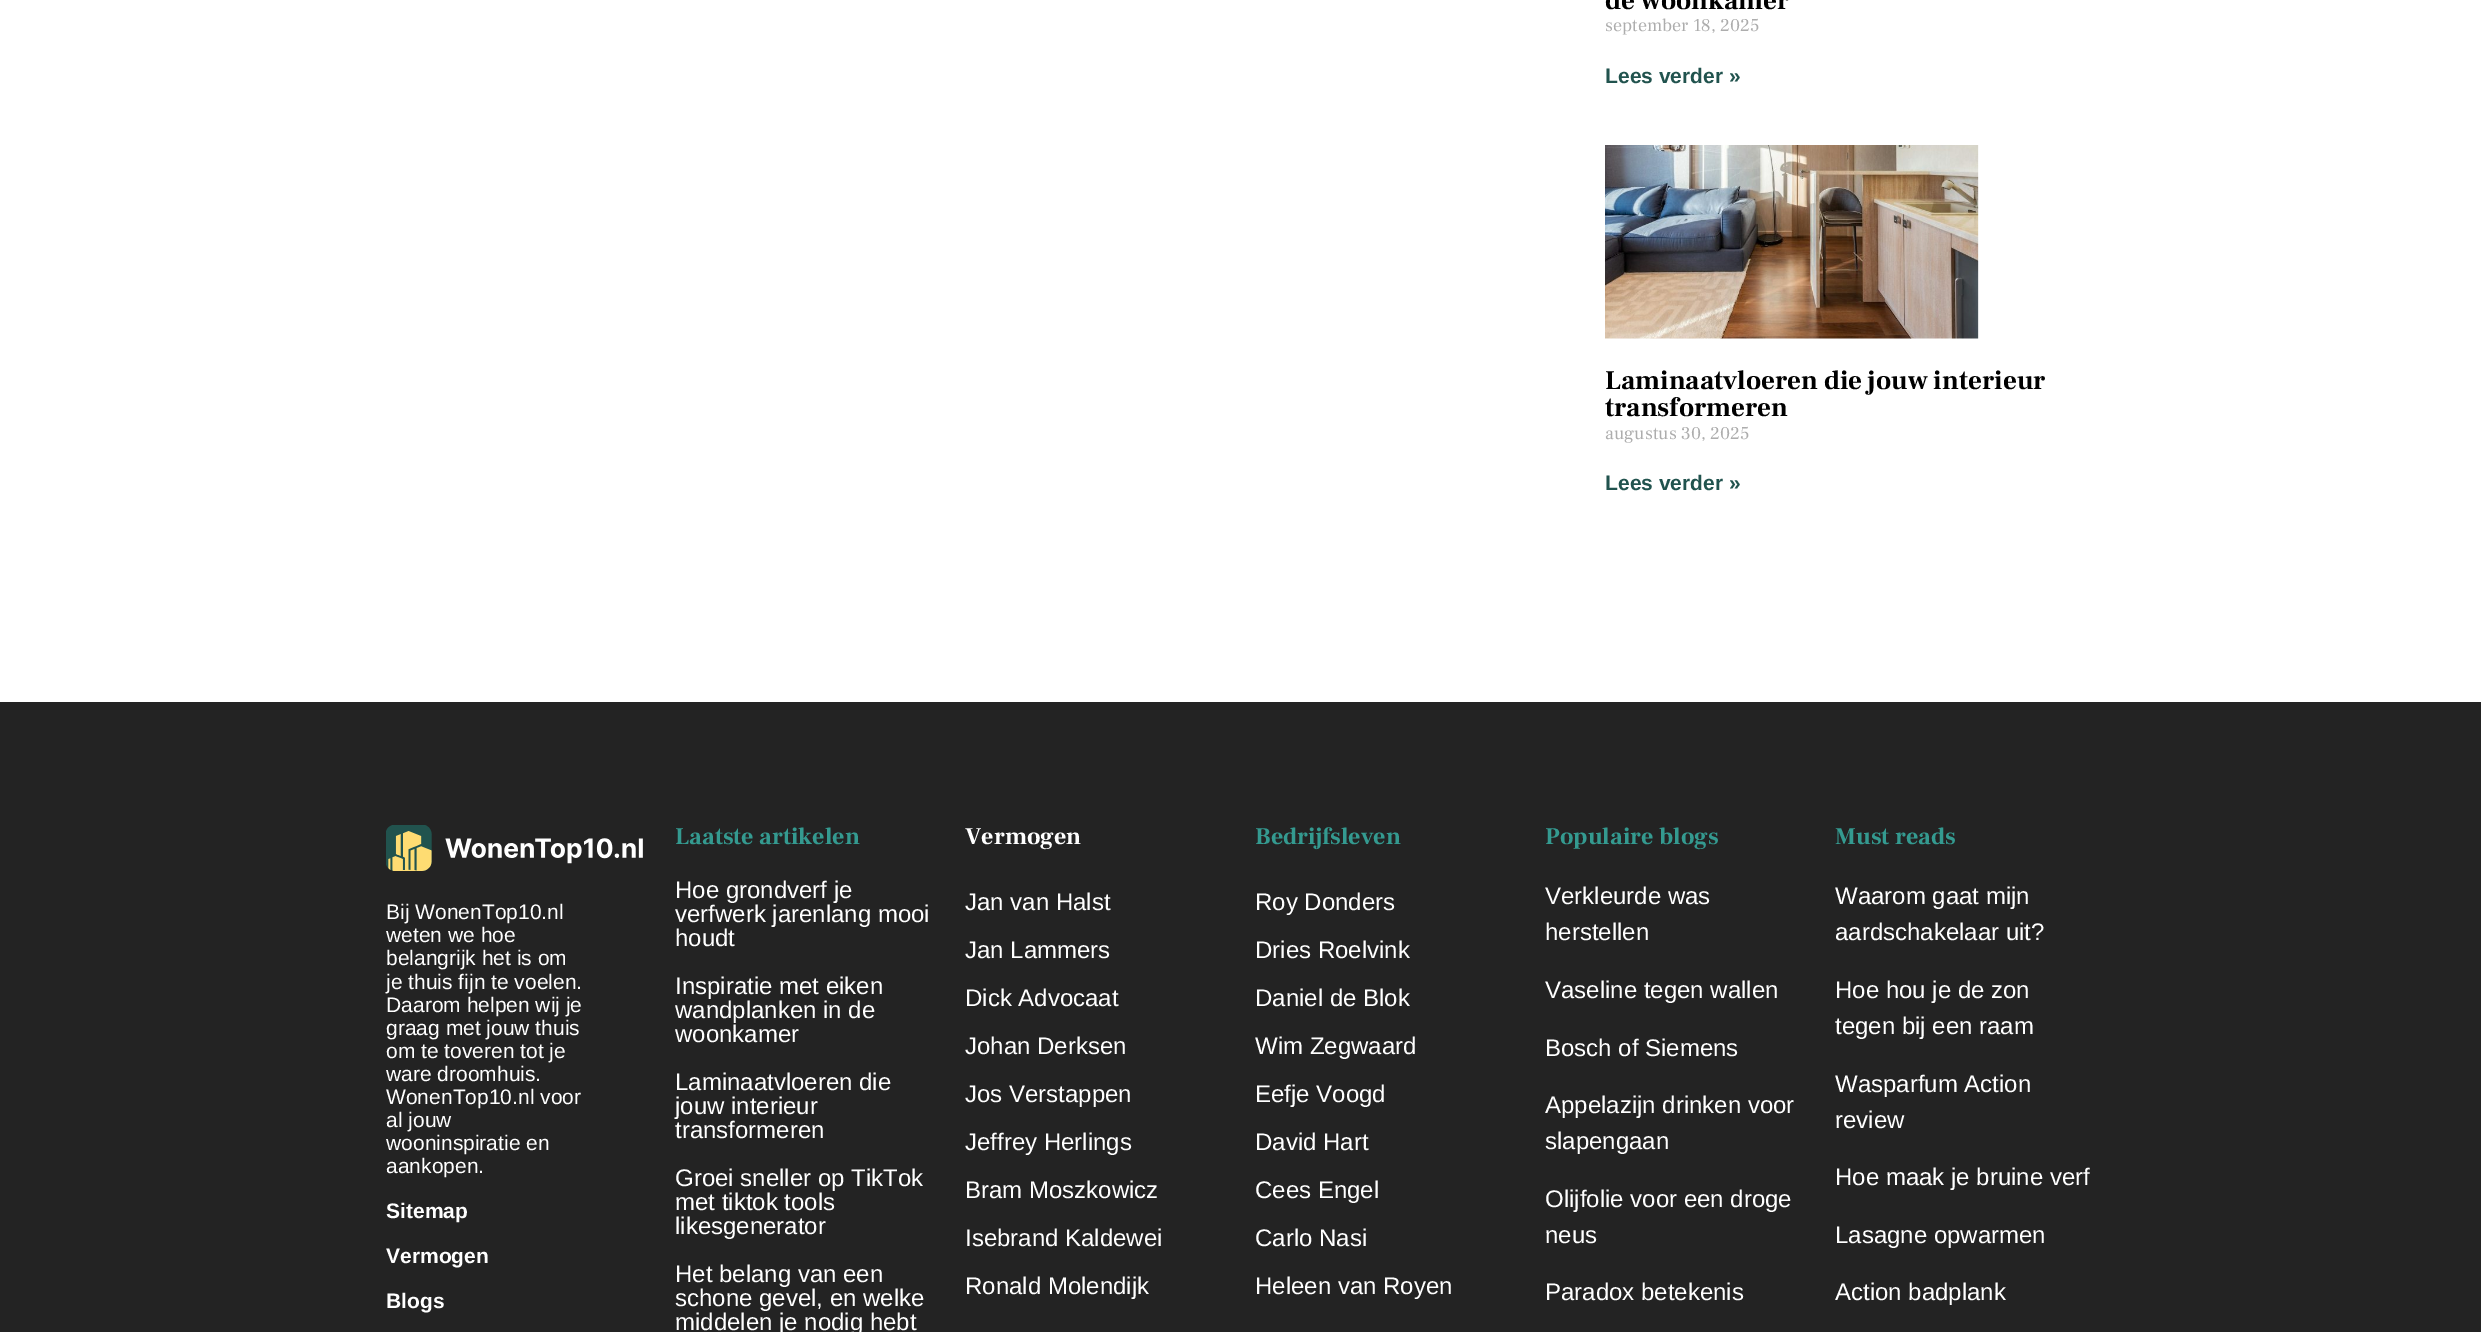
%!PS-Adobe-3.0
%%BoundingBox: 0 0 2481 1332
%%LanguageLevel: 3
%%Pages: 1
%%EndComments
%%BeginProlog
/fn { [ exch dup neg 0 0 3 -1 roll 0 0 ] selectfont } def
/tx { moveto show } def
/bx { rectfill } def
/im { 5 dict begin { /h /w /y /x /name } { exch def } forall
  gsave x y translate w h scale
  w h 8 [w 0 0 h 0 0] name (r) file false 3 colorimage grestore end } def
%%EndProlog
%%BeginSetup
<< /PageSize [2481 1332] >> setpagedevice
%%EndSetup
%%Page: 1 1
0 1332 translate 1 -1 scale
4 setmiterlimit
1 setgray
0 0 2481 1332 bx
/FrankRuhlLibre-Bold 27 fn
0 setgray
(de woonkamer) 1605 9 tx
/FrankRuhlLibre-Regular 18 fn
0.678 setgray
(september 18, 2025) 1605 31 tx
/Arimo-Bold 21 fn
0.129 0.325 0.306 setrgbcolor
(Lees verder ») 1605 83 tx
(image0.raw) 1605 145 374 194 im
/FrankRuhlLibre-Bold 27 fn
0 setgray
(Laminaatvloeren die jouw interieur) 1605 389 tx
(transformeren) 1605 416 tx
/FrankRuhlLibre-Regular 18 fn
0.678 setgray
(augustus 30, 2025) 1605 439 tx
/Arimo-Bold 21 fn
0.129 0.325 0.306 setrgbcolor
(Lees verder ») 1605 490 tx
0.137 setgray
0 702 2481 630 bx
(image1.raw) 386 825 257 46 im
/Arimo-Regular 21 fn
1 setgray
(Bij WonenTop10.nl) 386 919 tx
(weten we hoe) 386 942 tx
(belangrijk het is om) 386 965 tx
(je thuis fijn te voelen.) 386 989 tx
(Daarom helpen wij je) 386 1012 tx
(graag met jouw thuis) 386 1035 tx
(om te toveren tot je) 386 1058 tx
(ware droomhuis.) 386 1081 tx
(WonenTop10.nl voor) 386 1104 tx
(al jouw) 386 1127 tx
(wooninspiratie en) 386 1150 tx
(aankopen.) 386 1173 tx
/Arimo-Bold 21 fn
(Sitemap) 386 1218 tx
(Vermogen) 386 1263 tx
(Blogs) 386 1308 tx
/FrankRuhlLibre-Bold 24 fn
0.204 0.604 0.565 setrgbcolor
(Laatste artikelen) 675 844 tx
/Arimo-Regular 24 fn
1 setgray
(Hoe grondverf je) 675 898 tx
(verfwerk jarenlang mooi) 675 922 tx
(houdt) 675 946 tx
(Inspiratie met eiken) 675 994 tx
(wandplanken in de) 675 1018 tx
(woonkamer) 675 1042 tx
(Laminaatvloeren die) 675 1090 tx
(jouw interieur) 675 1114 tx
(transformeren) 675 1138 tx
(Groei sneller op TikTok) 675 1186 tx
(met tiktok tools) 675 1210 tx
(likesgenerator) 675 1234 tx
(Het belang van een) 675 1282 tx
(schone gevel, en welke) 675 1306 tx
(middelen je nodig hebt) 675 1330 tx
/FrankRuhlLibre-Bold 24 fn
(Vermogen) 965 844 tx
/Arimo-Regular 24 fn
(Jan van Halst) 965 910 tx
(Jan Lammers) 965 958 tx
(Dick Advocaat) 965 1006 tx
(Johan Derksen) 965 1054 tx
(Jos Verstappen) 965 1102 tx
(Jeffrey Herlings) 965 1150 tx
(Bram Moszkowicz) 965 1198 tx
(Isebrand Kaldewei) 965 1246 tx
(Ronald Molendijk) 965 1294 tx
/FrankRuhlLibre-Bold 24 fn
0.204 0.604 0.565 setrgbcolor
(Bedrijfsleven) 1255 844 tx
/Arimo-Regular 24 fn
1 setgray
(Roy Donders) 1255 910 tx
(Dries Roelvink) 1255 958 tx
(Daniel de Blok) 1255 1006 tx
(Wim Zegwaard) 1255 1054 tx
(Eefje Voogd) 1255 1102 tx
(David Hart) 1255 1150 tx
(Cees Engel) 1255 1198 tx
(Carlo Nasi) 1255 1246 tx
(Heleen van Royen) 1255 1294 tx
/FrankRuhlLibre-Bold 24 fn
0.204 0.604 0.565 setrgbcolor
(Populaire blogs) 1545 844 tx
/Arimo-Regular 24 fn
1 setgray
(Verkleurde was) 1545 904 tx
(herstellen) 1545 940 tx
(Vaseline tegen wallen) 1545 998 tx
(Bosch of Siemens) 1545 1056 tx
(Appelazijn drinken voor) 1545 1113 tx
(slapengaan) 1545 1149 tx
(Olijfolie voor een droge) 1545 1207 tx
(neus) 1545 1243 tx
(Paradox betekenis) 1545 1300 tx
/FrankRuhlLibre-Bold 24 fn
0.204 0.604 0.565 setrgbcolor
(Must reads) 1835 844 tx
/Arimo-Regular 24 fn
1 setgray
(Waarom gaat mijn) 1835 904 tx
(aardschakelaar uit?) 1835 940 tx
(Hoe hou je de zon) 1835 998 tx
(tegen bij een raam) 1835 1034 tx
(Wasparfum Action) 1835 1092 tx
(review) 1835 1128 tx
(Hoe maak je bruine verf) 1835 1185 tx
(Lasagne opwarmen) 1835 1243 tx
(Action badplank) 1835 1300 tx
showpage
%%EOF
